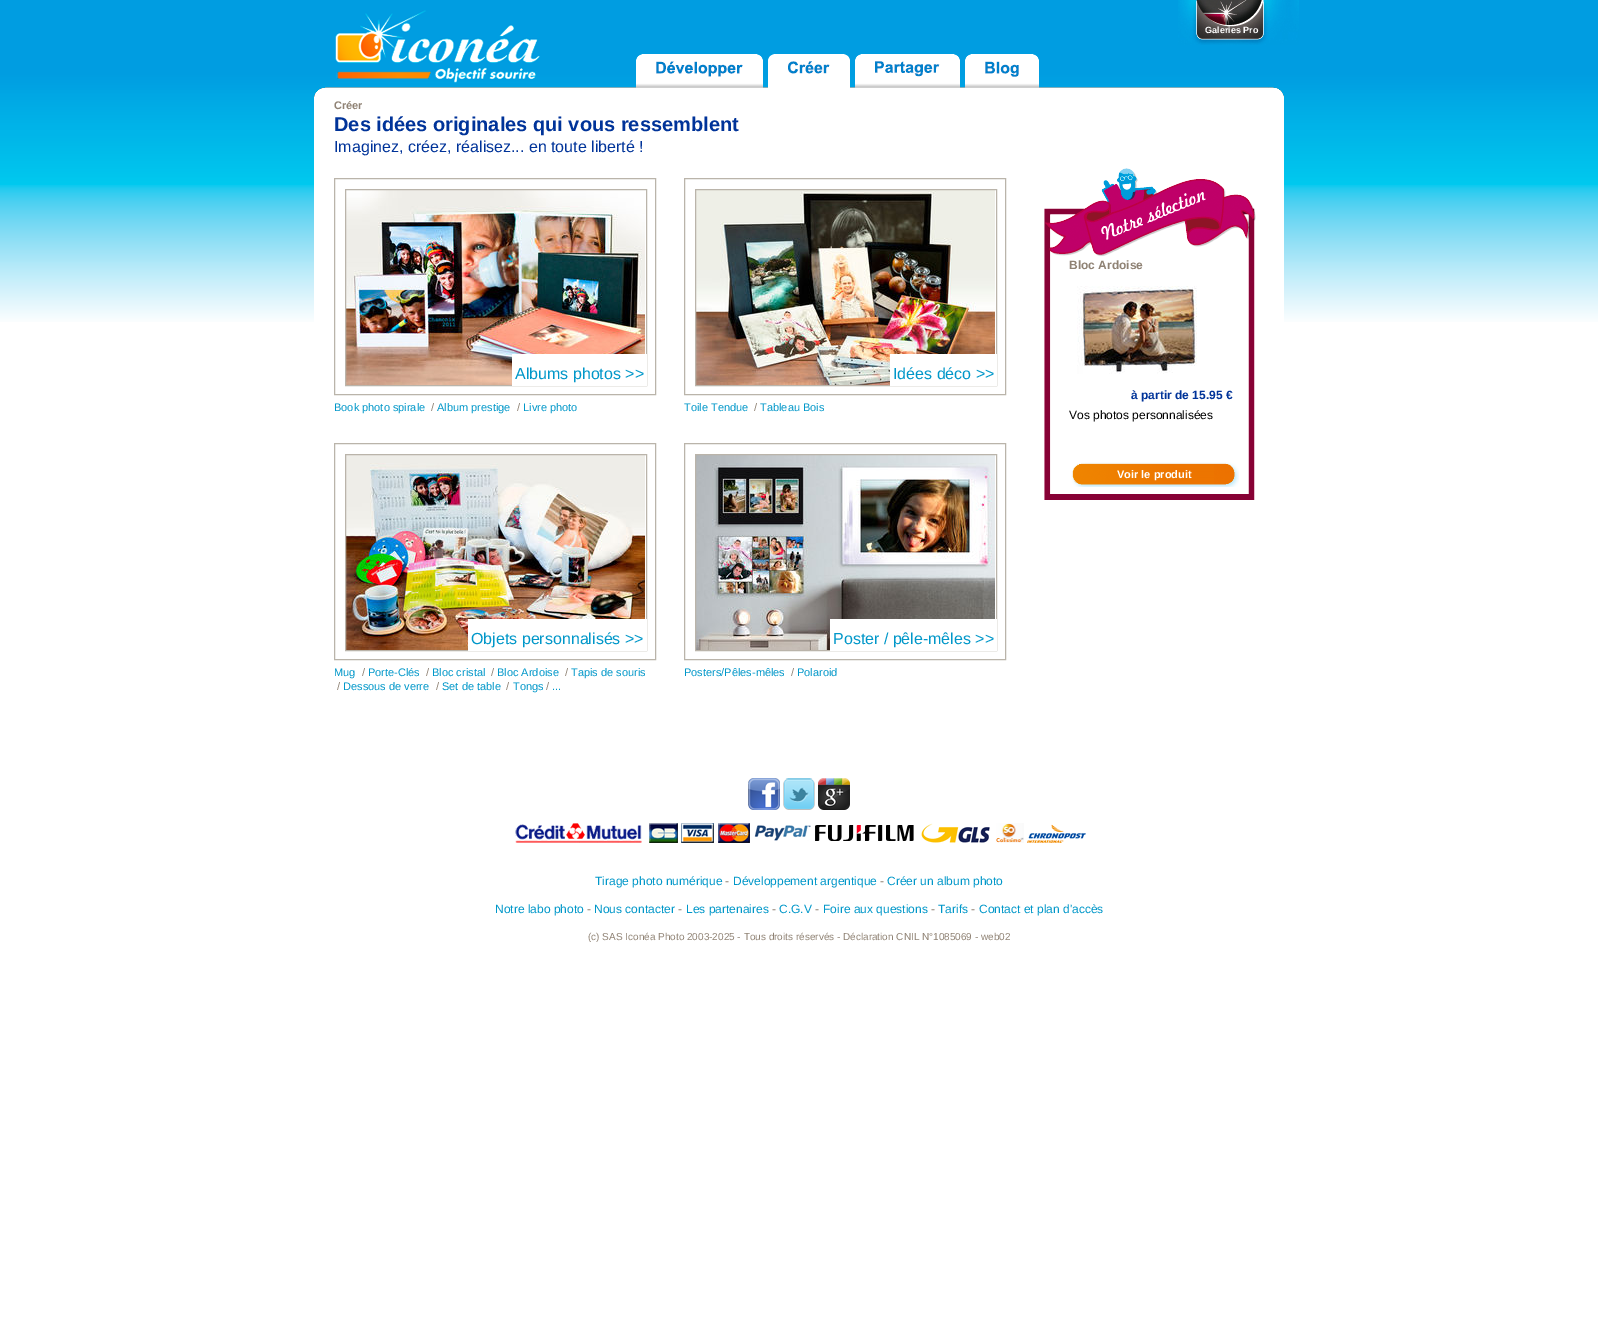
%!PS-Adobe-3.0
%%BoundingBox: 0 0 1598 1319
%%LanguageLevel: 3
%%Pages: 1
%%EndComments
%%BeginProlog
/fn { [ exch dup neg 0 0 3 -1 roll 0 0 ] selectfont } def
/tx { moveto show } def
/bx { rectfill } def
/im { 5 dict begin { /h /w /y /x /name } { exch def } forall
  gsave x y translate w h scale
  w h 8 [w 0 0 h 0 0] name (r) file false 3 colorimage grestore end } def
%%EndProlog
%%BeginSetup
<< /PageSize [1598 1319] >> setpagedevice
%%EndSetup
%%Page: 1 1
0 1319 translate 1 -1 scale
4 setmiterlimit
1 setgray
0 0 1598 1319 bx
(image0.raw) 0 0 1598 322 im
(image1.raw) 314 87 970 235 im
(image2.raw) 335 10 205 73 im
(image3.raw) 1178 0 121 45 im
/LiberationSans-Bold 9 fn
(Galeries Pro) 1205 33 tx
(image4.raw) 636 54 17 34 im
(image5.raw) 653 54 110 34 im
(image6.raw) 656 61 87 16 im
(image7.raw) 768 54 17 34 im
(image8.raw) 785 54 65 34 im
(image9.raw) 788 61 42 13 im
(image4.raw) 855 54 17 34 im
(image10.raw) 872 54 88 34 im
(image11.raw) 875 61 65 16 im
(image4.raw) 965 54 17 34 im
(image12.raw) 982 54 57 34 im
(image13.raw) 985 61 34 16 im
/LiberationSans-Bold 11 fn
0.561 0.51 0.455 setrgbcolor
(Créer) 334 109 tx
/LiberationSans-Bold 20 fn
0 0.2 0.6 setrgbcolor
(Des idées originales qui vous ressemblent) 334 131 tx
/LiberationSans-Regular 16 fn
(Imaginez, créez, réalisez... en toute liberté !) 334 152 tx
0.729 0.706 0.667 setrgbcolor
334.5 178.5 321 216 rectstroke
(image14.raw) 346 190 299 195 im
345.5 189.5 301 196 rectstroke
1 setgray
512 354 135 32 bx
0 0.592 0.788 setrgbcolor
(Albums photos >>) 515 379 tx
/LiberationSans-Regular 11 fn
(Book photo spirale) 334 411 tx
0.561 0.51 0.455 setrgbcolor
(/) 431 411 tx
0 0.592 0.788 setrgbcolor
(Album prestige) 437 411 tx
0.561 0.51 0.455 setrgbcolor
(/) 517 411 tx
0 0.592 0.788 setrgbcolor
(Livre photo) 523 411 tx
0.729 0.706 0.667 setrgbcolor
684.5 178.5 321 216 rectstroke
(image15.raw) 696 190 299 195 im
695.5 189.5 301 196 rectstroke
1 setgray
890 354 107 32 bx
/LiberationSans-Regular 16 fn
0 0.592 0.788 setrgbcolor
(Idées déco >>) 893 379 tx
/LiberationSans-Regular 11 fn
(Toile Tendue) 684 411 tx
0.561 0.51 0.455 setrgbcolor
(/) 754 411 tx
0 0.592 0.788 setrgbcolor
(Tableau Bois) 760 411 tx
0.729 0.706 0.667 setrgbcolor
334.5 443.5 321 216 rectstroke
(image16.raw) 346 455 299 195 im
345.5 454.5 301 196 rectstroke
1 setgray
468 619 179 32 bx
/LiberationSans-Regular 16 fn
0 0.592 0.788 setrgbcolor
(Objets personnalisés >>) 471 644 tx
/LiberationSans-Regular 11 fn
(Mug) 334 676 tx
0.561 0.51 0.455 setrgbcolor
(/) 362 676 tx
0 0.592 0.788 setrgbcolor
(Porte-Clés) 368 676 tx
0.561 0.51 0.455 setrgbcolor
(/) 426 676 tx
0 0.592 0.788 setrgbcolor
(Bloc cristal) 432 676 tx
0.561 0.51 0.455 setrgbcolor
(/) 491 676 tx
0 0.592 0.788 setrgbcolor
(Bloc Ardoise) 497 676 tx
0.561 0.51 0.455 setrgbcolor
(/) 565 676 tx
0 0.592 0.788 setrgbcolor
(Tapis de souris) 571 676 tx
0.561 0.51 0.455 setrgbcolor
(/) 337 690 tx
0 0.592 0.788 setrgbcolor
(Dessous de verre) 343 690 tx
0.561 0.51 0.455 setrgbcolor
(/) 436 690 tx
0 0.592 0.788 setrgbcolor
(Set de table) 442 690 tx
0.561 0.51 0.455 setrgbcolor
(/) 506 690 tx
0 0.592 0.788 setrgbcolor
(Tongs) 513 690 tx
0.561 0.51 0.455 setrgbcolor
(/) 546 690 tx
0 0.592 0.788 setrgbcolor
(...) 552 690 tx
0.729 0.706 0.667 setrgbcolor
684.5 443.5 321 216 rectstroke
(image17.raw) 696 455 299 195 im
695.5 454.5 301 196 rectstroke
1 setgray
830 619 167 32 bx
/LiberationSans-Regular 16 fn
0 0.592 0.788 setrgbcolor
(Poster / pêle-mêles >>) 833 644 tx
/LiberationSans-Regular 11 fn
(Posters/Pêles-mêles) 684 676 tx
0.561 0.51 0.455 setrgbcolor
(/) 791 676 tx
0 0.592 0.788 setrgbcolor
(Polaroid) 797 676 tx
(image18.raw) 1044 168 212 332 im
/LiberationSans-Bold 12 fn
0.561 0.51 0.455 setrgbcolor
(Bloc Ardoise) 1069 269 tx
(image19.raw) 1077 286 120 88 im
0 0.2 0.6 setrgbcolor
(à partir de 15.95 €) 1131 399 tx
/LiberationSans-Regular 12 fn
0 setgray
(Vos photos personnalisées) 1069 419 tx
(image20.raw) 1071 462 23 25 im
(image21.raw) 1214 462 25 25 im
(image22.raw) 1094 462 120 25 im
/LiberationSans-Bold 11 fn
1 setgray
(Voir le produit) 1117 478 tx
(image23.raw) 748 778 32 32 im
(image24.raw) 783 778 32 32 im
(image25.raw) 818 778 32 32 im
(image26.raw) 515 823 127 20 im
(image27.raw) 649 823 29 20 im
(image28.raw) 681 823 33 20 im
(image29.raw) 718 823 32 20 im
(image30.raw) 754 825 57 16 im
(image31.raw) 815 825 99 16 im
(image32.raw) 921 823 69 20 im
(image33.raw) 996 823 28 20 im
(image34.raw) 1027 824 59 19 im
/LiberationSans-Regular 12 fn
0 0.592 0.788 setrgbcolor
(Tirage photo numérique) 595 885 tx
0.561 0.51 0.455 setrgbcolor
(-) 725 885 tx
0 0.592 0.788 setrgbcolor
(Développement argentique) 733 885 tx
0.561 0.51 0.455 setrgbcolor
(-) 880 885 tx
0 0.592 0.788 setrgbcolor
(Créer un album photo) 887 885 tx
(Notre labo photo) 495 913 tx
0.561 0.51 0.455 setrgbcolor
(-) 587 913 tx
0 0.592 0.788 setrgbcolor
(Nous contacter) 594 913 tx
0.561 0.51 0.455 setrgbcolor
(-) 678 913 tx
0 0.592 0.788 setrgbcolor
(Les partenaires) 686 913 tx
0.561 0.51 0.455 setrgbcolor
(-) 772 913 tx
0 0.592 0.788 setrgbcolor
(C.G.V) 779 913 tx
0.561 0.51 0.455 setrgbcolor
(-) 815 913 tx
0 0.592 0.788 setrgbcolor
(Foire aux questions) 823 913 tx
0.561 0.51 0.455 setrgbcolor
(-) 931 913 tx
0 0.592 0.788 setrgbcolor
(Tarifs) 938 913 tx
0.561 0.51 0.455 setrgbcolor
(-) 971 913 tx
0 0.592 0.788 setrgbcolor
(Contact et plan d'accès) 979 913 tx
/LiberationSans-Regular 10 fn
0.561 0.51 0.455 setrgbcolor
(\(c\) SAS Iconéa Photo 2003-2025 - Tous droits réservés - Déclaration CNIL N°1085069 - web02) 588 940 tx
showpage
%%EOF
